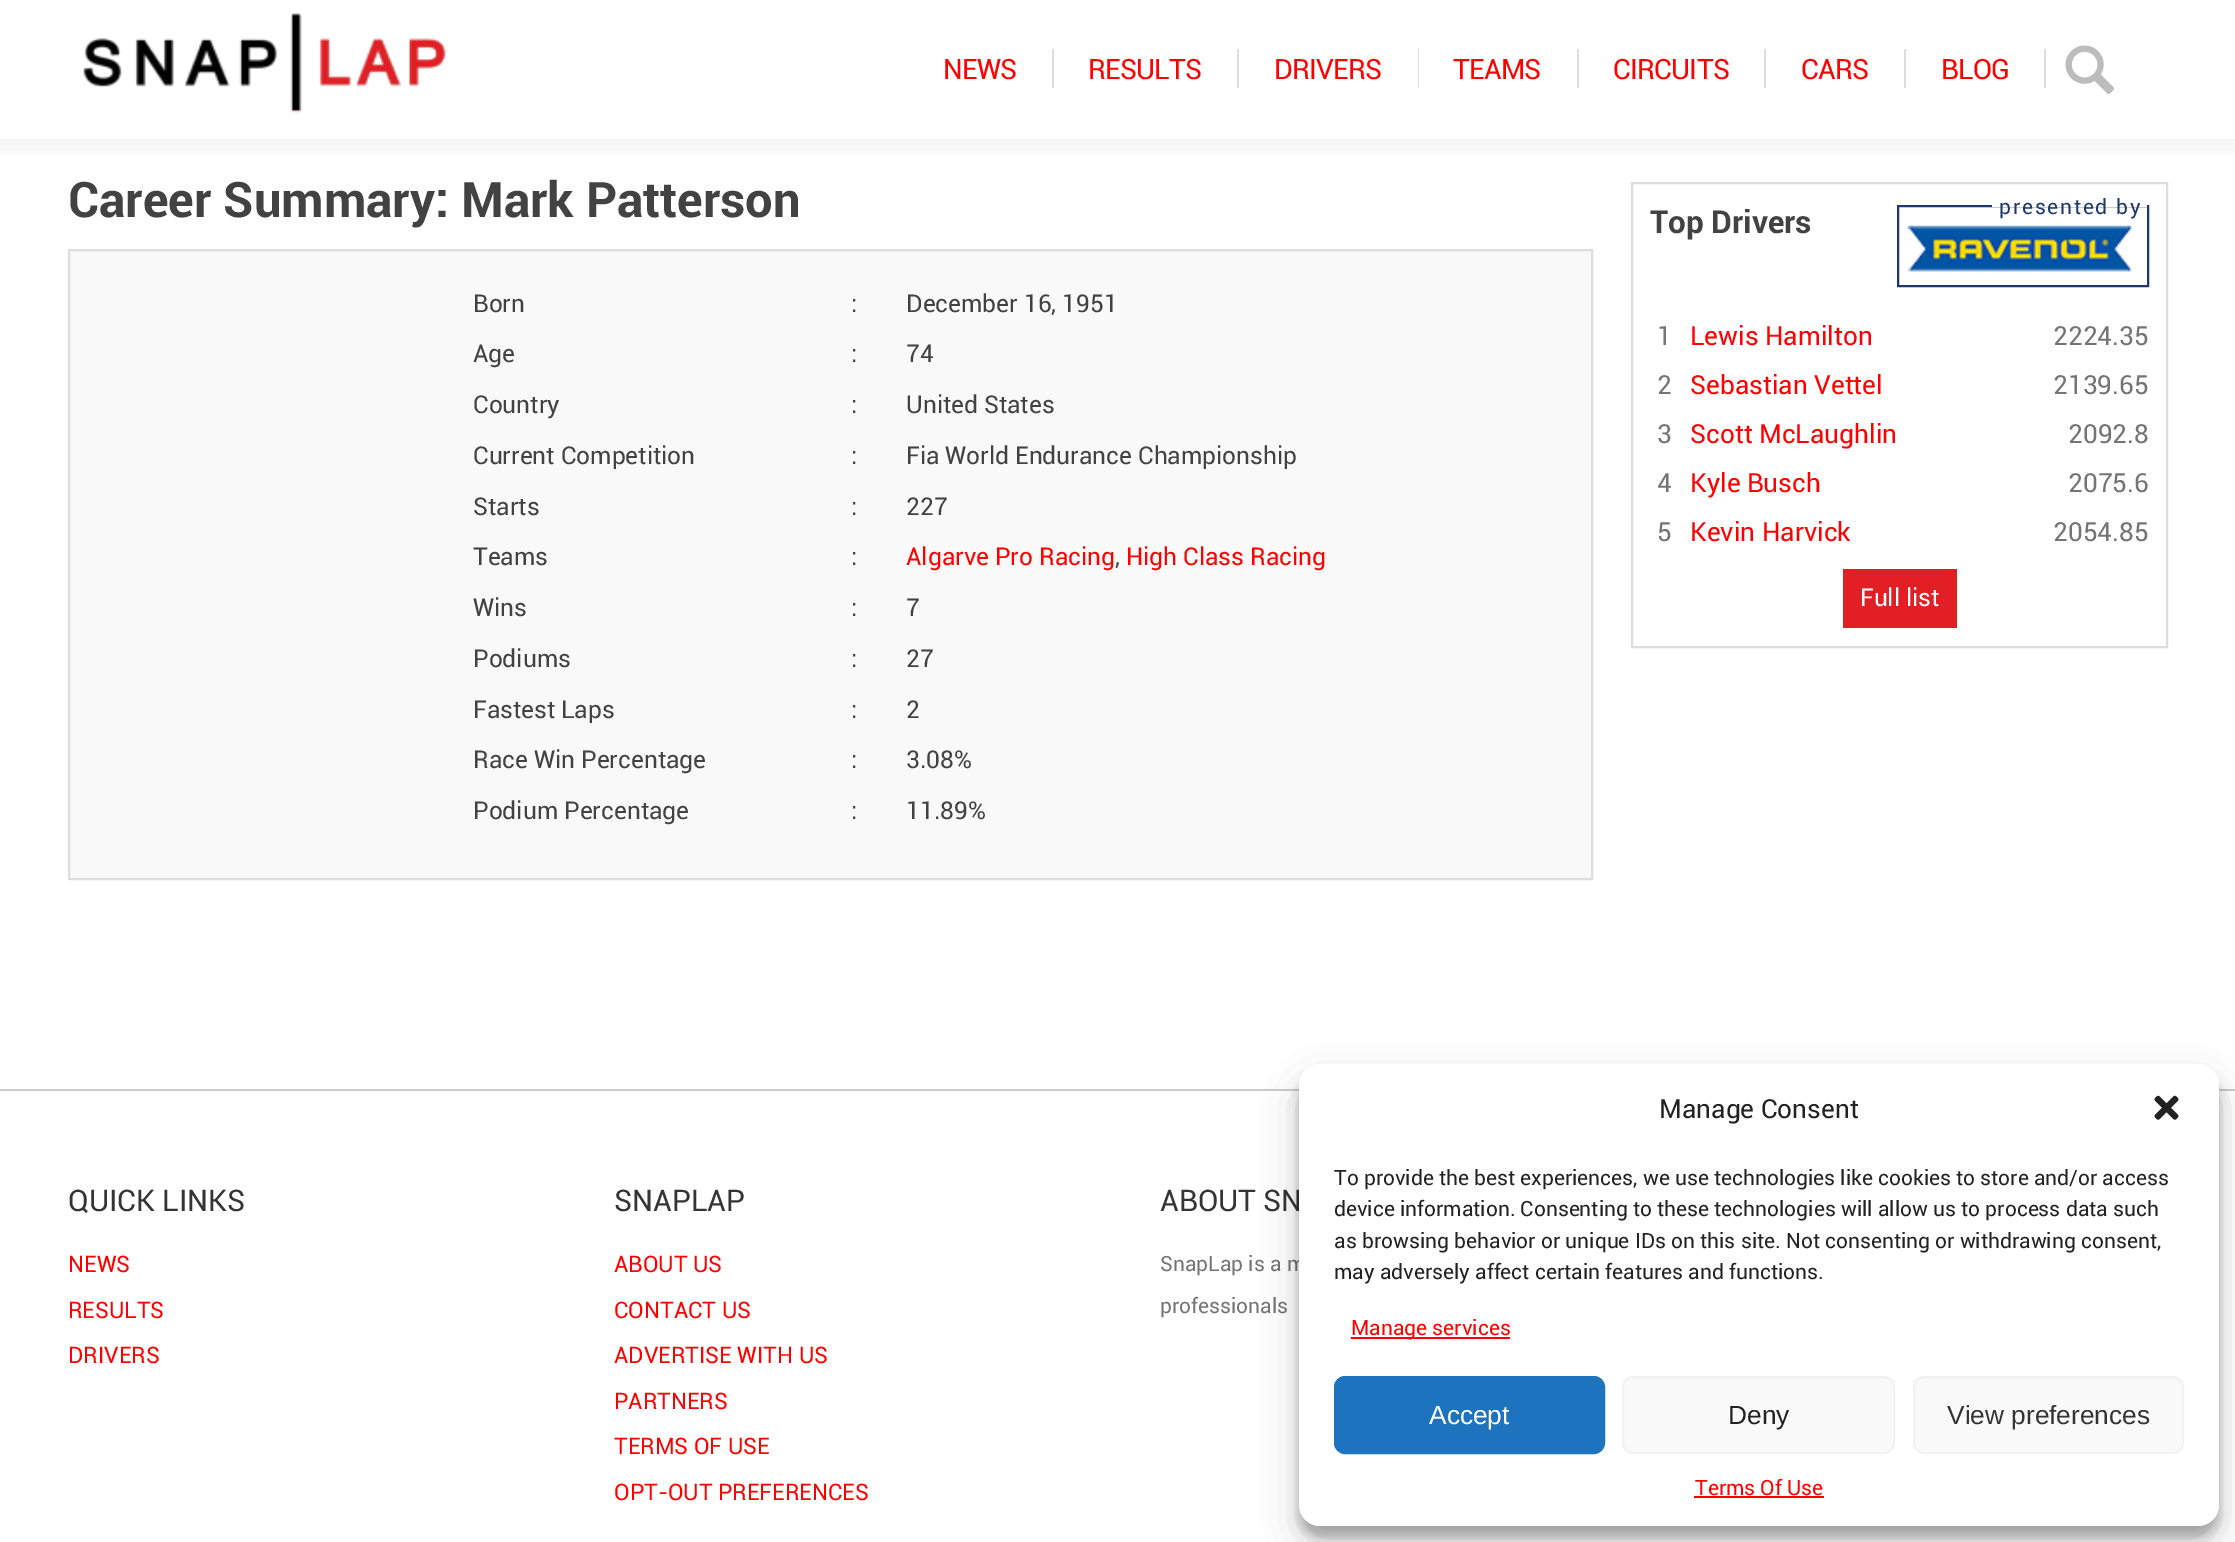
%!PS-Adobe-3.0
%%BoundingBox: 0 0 2235 1542
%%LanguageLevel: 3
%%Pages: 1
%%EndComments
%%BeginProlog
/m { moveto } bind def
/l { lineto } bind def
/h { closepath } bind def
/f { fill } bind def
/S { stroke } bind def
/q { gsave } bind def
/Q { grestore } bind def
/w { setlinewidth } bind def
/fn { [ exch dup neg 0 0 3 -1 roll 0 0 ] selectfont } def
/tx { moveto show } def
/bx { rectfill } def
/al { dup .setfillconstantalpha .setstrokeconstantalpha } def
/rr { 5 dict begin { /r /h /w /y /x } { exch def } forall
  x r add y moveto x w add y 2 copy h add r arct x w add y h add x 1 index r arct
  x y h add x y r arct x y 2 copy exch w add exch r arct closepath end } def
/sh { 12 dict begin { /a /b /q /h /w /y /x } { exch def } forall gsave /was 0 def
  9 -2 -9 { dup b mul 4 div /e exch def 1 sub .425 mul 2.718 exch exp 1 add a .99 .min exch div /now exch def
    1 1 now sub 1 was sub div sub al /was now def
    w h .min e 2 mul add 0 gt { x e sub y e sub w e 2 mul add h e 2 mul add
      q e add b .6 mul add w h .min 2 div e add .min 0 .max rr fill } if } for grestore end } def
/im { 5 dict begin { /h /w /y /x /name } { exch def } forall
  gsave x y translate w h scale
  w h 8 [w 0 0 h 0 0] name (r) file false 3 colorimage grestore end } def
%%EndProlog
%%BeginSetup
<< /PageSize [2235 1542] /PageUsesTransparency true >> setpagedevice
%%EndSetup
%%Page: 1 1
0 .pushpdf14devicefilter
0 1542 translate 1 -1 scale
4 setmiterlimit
1 setgray
0 0 2235 1542 bx
(image0.raw) 0 138 2235 16 im
(image1.raw) 83 13 364 100 im
0.867 setgray
1052 49 2 39 bx
/Roboto-Regular 28 fn
1 0 0 setrgbcolor
943 79 m -0.75 0 (NEWS) ashow
0.867 setgray
1237 49 2 39 bx
1 0 0 setrgbcolor
1088 79 m -0.75 0 (RESULTS) ashow
0.867 setgray
1418 49 1 39 bx
1 0 0 setrgbcolor
1274 79 m -0.75 0 (DRIVERS) ashow
0.867 setgray
1577 49 2 39 bx
1 0 0 setrgbcolor
1453 79 m -0.75 0 (TEAMS) ashow
0.867 setgray
1764 49 2 39 bx
1 0 0 setrgbcolor
1613 79 m -0.75 0 (CIRCUITS) ashow
0.867 setgray
1904 49 2 39 bx
1 0 0 setrgbcolor
1801 79 m -0.75 0 (CARS) ashow
0.867 setgray
2044 49 2 39 bx
1 0 0 setrgbcolor
1941 79 m -0.75 0 (BLOG) ashow
(image2.raw) 2065 45 49 49 im
/Roboto-Bold 49 fn
0.259 setgray
(Career Summary: Mark Patterson) 68 217 tx
0.976 setgray
69 250 m 1592 250 l 1592 879 l 69 879 l h q f Q
0.867 setgray
2 w
S
/Roboto-Regular 24.5 fn
0.259 setgray
(Born) 473 312 tx
(:) 851 312 tx
(December 16, 1951) 906 312 tx
(Age) 473 362 tx
(:) 851 362 tx
(74) 906 362 tx
(Country) 473 413 tx
(:) 851 413 tx
(United States) 906 413 tx
(Current Competition) 473 464 tx
(:) 851 464 tx
(Fia World Endurance Championship) 906 464 tx
(Starts) 473 515 tx
(:) 851 515 tx
(227) 906 515 tx
(Teams) 473 565 tx
(:) 851 565 tx
1 0 0 setrgbcolor
(Algarve Pro Racing) 906 565 tx
0.259 setgray
(,) 1115 565 tx
1 0 0 setrgbcolor
(High Class Racing) 1126 565 tx
0.259 setgray
(Wins) 473 616 tx
(:) 851 616 tx
(7) 906 616 tx
(Podiums) 473 667 tx
(:) 851 667 tx
(27) 906 667 tx
(Fastest Laps) 473 718 tx
(:) 851 718 tx
(2) 906 718 tx
(Race Win Percentage) 473 768 tx
(:) 851 768 tx
(3.08%) 906 768 tx
(Podium Percentage) 473 819 tx
(:) 851 819 tx
(11.89%) 906 819 tx
0.867 setgray
1632 183 535 464 rectstroke
0.114 0.22 0.412 setrgbcolor
1898 206 250 80 rectstroke
1 setgray
1992 205 155 2 bx
/Roboto-Regular 21 fn
0.114 0.22 0.412 setrgbcolor
1999 214 m 1.75 0 (presented by) ashow
(image3.raw) 1907 225 225 47 im
/Roboto-Regular 26.25 fn
0.455 setgray
(1) 1657 345 tx
1 0 0 setrgbcolor
(Lewis Hamilton) 1690 345 tx
0.455 setgray
(2224.35) 2053 345 tx
(2) 1657 394 tx
1 0 0 setrgbcolor
(Sebastian Vettel) 1690 394 tx
0.455 setgray
(2139.65) 2053 394 tx
(3) 1657 443 tx
1 0 0 setrgbcolor
(Scott McLaughlin) 1690 443 tx
0.455 setgray
(2092.8) 2068 443 tx
(4) 1657 492 tx
1 0 0 setrgbcolor
(Kyle Busch) 1690 492 tx
0.455 setgray
(2075.6) 2068 492 tx
(5) 1657 541 tx
1 0 0 setrgbcolor
(Kevin Harvick) 1690 541 tx
0.455 setgray
(2054.85) 2053 541 tx
/Roboto-Bold 31.5 fn
0.259 setgray
(Top Drivers) 1650 233 tx
0.886 0.122 0.145 setrgbcolor
1843 569 114 59 bx
/Roboto-Regular 24.5 fn
1 setgray
(Full list) 1860 606 tx
0.8 setgray
0 1089 2235 2 bx
/Roboto-Regular 29.75 fn
0.204 setgray
(QUICK LINKS) 68 1211 tx
/Roboto-Regular 22.75 fn
1 0 0 setrgbcolor
(NEWS) 68 1272 tx
(RESULTS) 68 1318 tx
(DRIVERS) 68 1363 tx
/Roboto-Regular 29.75 fn
0.204 setgray
(SNAPLAP) 614 1211 tx
/Roboto-Regular 22.75 fn
1 0 0 setrgbcolor
(ABOUT US) 614 1272 tx
(CONTACT US) 614 1318 tx
(ADVERTISE WITH US) 614 1363 tx
(PARTNERS) 614 1409 tx
(TERMS OF USE) 614 1454 tx
(OPT-OUT PREFERENCES) 614 1500 tx
/Roboto-Regular 29.75 fn
0.204 setgray
(ABOUT SN) 1160 1211 tx
/Roboto-Regular 21 fn
0.455 setgray
(SnapLap is a m) 1160 1271 tx
(professionals) 1160 1313 tx
0 setgray
1299 1075 920 462 21 5 0.23 sh
1299 1082 920 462 21 17.5 0.19 sh
1 setgray
1299 1064 920 462 21 rr f
/Roboto-Regular 26.25 fn
0.133 setgray
(Manage Consent) 1659 1118 tx
(image4.raw) 2154 1095 25 25 im
/Roboto-Regular 21 fn
(To provide the best experiences, we use technologies like cookies to store and/or access) 1334 1185 tx
(device information. Consenting to these technologies will allow us to process data such) 1334 1216 tx
(as browsing behavior or unique IDs on this site. Not consenting or withdrawing consent,) 1334 1248 tx
(may adversely affect certain features and functions.) 1334 1279 tx
1 0 0 setrgbcolor
1351 1337 159 2 bx
(Manage services) 1351 1335 tx
0.118 0.451 0.745 setrgbcolor
1335 1377 269 76 10 rr q f Q
S
/LiberationSans-Regular 26.25 fn
1 setgray
(Accept) 1429 1424 tx
0.976 setgray
1623 1377 271 76 10 rr q f Q
0.949 setgray
S
0.133 setgray
(Deny) 1728 1424 tx
0.976 setgray
1914 1377 269 76 10 rr q f Q
0.949 setgray
S
0.204 setgray
(View preferences) 1947 1424 tx
/Roboto-Regular 21 fn
1 0 0 setrgbcolor
(Terms Of Use) 1695 1495 tx
1694 1496 130 2 bx
.poppdf14devicefilter showpage
%%EOF
